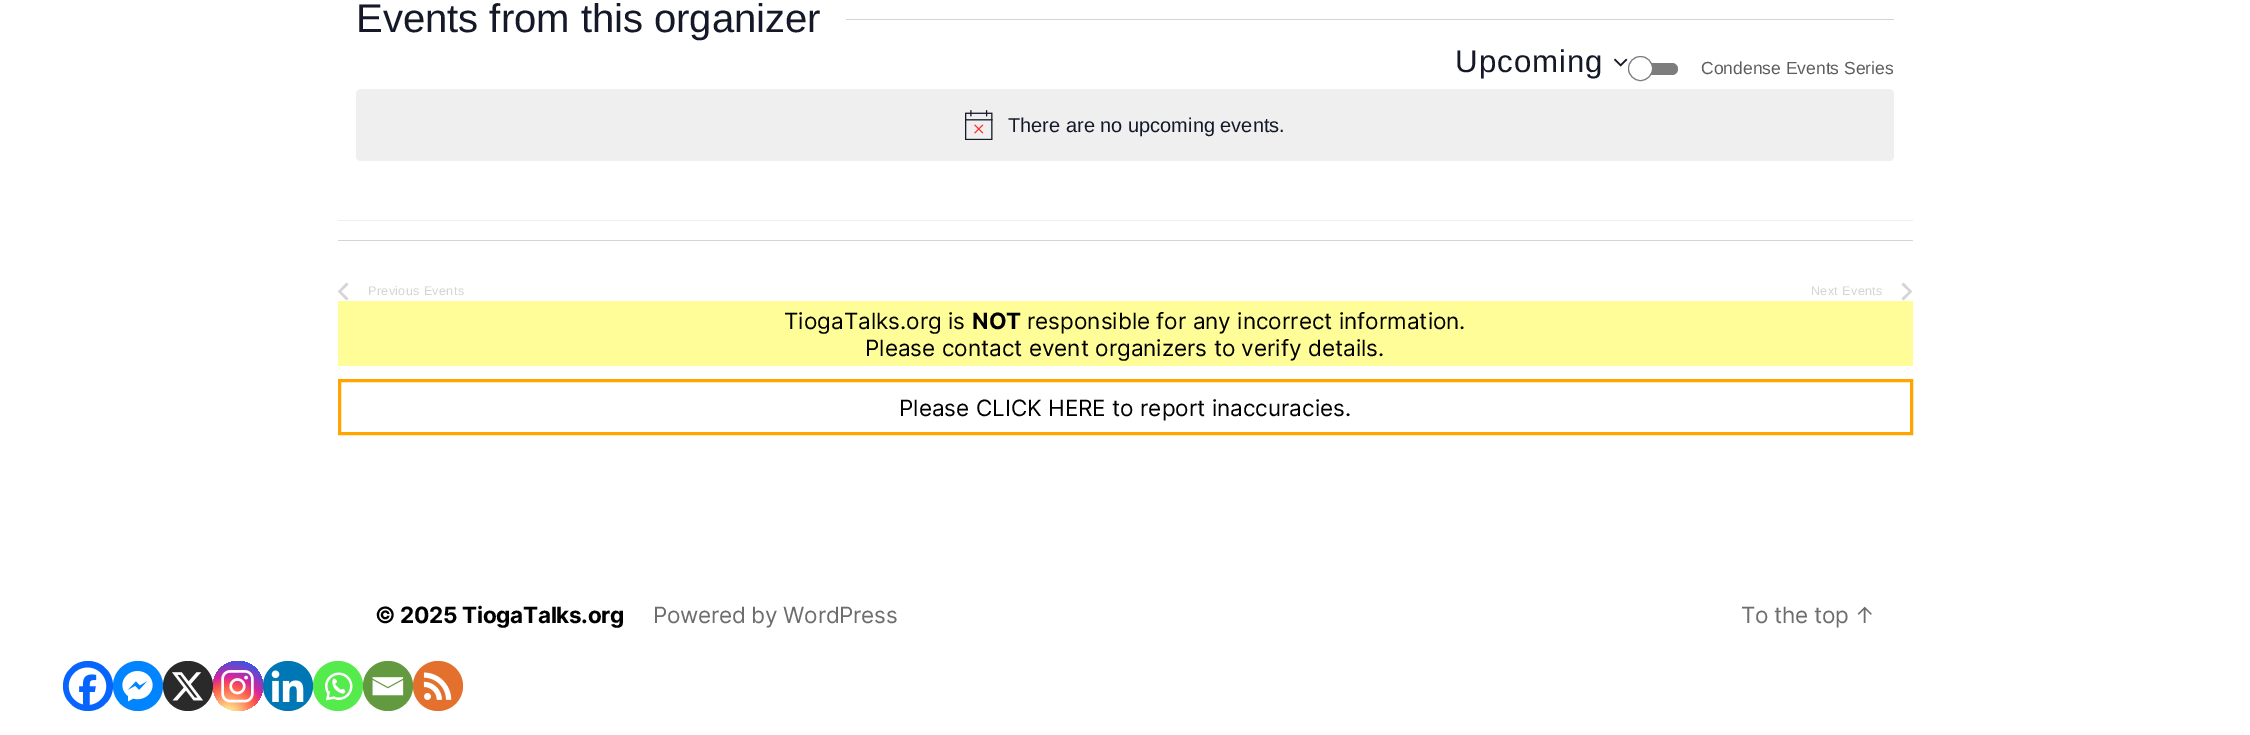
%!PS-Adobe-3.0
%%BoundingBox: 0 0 2250 735
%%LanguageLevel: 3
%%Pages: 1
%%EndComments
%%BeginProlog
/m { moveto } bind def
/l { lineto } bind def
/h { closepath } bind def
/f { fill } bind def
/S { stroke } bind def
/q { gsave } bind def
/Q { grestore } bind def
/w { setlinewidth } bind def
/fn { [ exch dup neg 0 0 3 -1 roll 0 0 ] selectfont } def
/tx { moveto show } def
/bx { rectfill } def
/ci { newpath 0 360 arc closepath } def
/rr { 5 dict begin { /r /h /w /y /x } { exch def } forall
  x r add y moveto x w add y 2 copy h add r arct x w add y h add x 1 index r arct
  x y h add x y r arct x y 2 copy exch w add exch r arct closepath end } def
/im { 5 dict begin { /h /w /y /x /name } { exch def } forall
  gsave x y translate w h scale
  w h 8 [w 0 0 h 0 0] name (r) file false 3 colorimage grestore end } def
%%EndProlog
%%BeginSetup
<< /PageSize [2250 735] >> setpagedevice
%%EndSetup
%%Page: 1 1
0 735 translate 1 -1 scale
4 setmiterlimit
1 setgray
0 0 2250 735 bx
0.933 setgray
338 220 1575 1 bx
/LiberationSans-Regular 40 fn
0.078 0.094 0.153 setrgbcolor
(Events from this organizer) 356 32 tx
0.835 setgray
846 19 1048 1 bx
/LiberationSans-Regular 31.25 fn
0.078 0.094 0.153 setrgbcolor
1455 72 m 1 0 (Upcoming) ashow
(image0.raw) 1614 58 14 9 im
0.49 setgray
1628 63 50 12 6 rr f
1 setgray
1640.5 68.5 12 ci q f Q
0.49 setgray
S
/LiberationSans-Regular 17.5 fn
0.365 setgray
(Condense Events Series) 1701 74 tx
0.937 0.937 0.941 setrgbcolor
356 89 1538 72 5 rr f
(image1.raw) 965 110 28 30 im
/LiberationSans-Regular 20 fn
0.078 0.094 0.153 setrgbcolor
(There are no upcoming events.) 1008 132 tx
0.835 setgray
338 240 1575 1 bx
348.5 298.5 m 346.5 300.5 l 338 291.5 l 346.5 282.5 l 348.5 284.5 l 341 291.5 l h f
/LiberationSans-Regular 12.5 fn
368 295 m 0.4 0 (Previous Events) ashow
1811 295 m 0.4 0 (Next Events) ashow
1901.5 284.5 m 1903.5 282.5 l 1912 291.5 l 1903.5 300.5 l 1901.5 298.5 l 1909 291.5 l h f
1 0.992 0.592 setrgbcolor
338 301 1575 65 bx
/Inter-Regular 22.5 fn
0 setgray
(TiogaTalks.org is) 784 329 tx
/Inter-Bold 22.5 fn
(NOT) 972 329 tx
/Inter-Regular 22.5 fn
(responsible for any incorrect information.) 1027 329 tx
(Please contact event organizers to verify details.) 865 356 tx
1 0.647 0 setrgbcolor
3 w
339.5 380.5 1572 53 rectstroke
0 setgray
(Please CLICK HERE to report inaccuracies.) 899 416 tx
/Inter-Bold 22.5 fn
375 623 m -0.3 0 (© 2025 TiogaTalks.org) ashow
/Inter-Regular 22.5 fn
0.427 setgray
653 623 m -0.3 0 (Powered by WordPress) ashow
1741 623 m -0.3 0 (To the top ↑) ashow
0.027 0.396 0.996 setrgbcolor
88 686 25 ci f
(image2.raw) 68 667 39 38 im
0 0.518 1 setrgbcolor
138 686 25 ci f
(image3.raw) 122 671 31 31 im
0.165 setgray
188 686 25 ci f
(image4.raw) 172 672 31 29 im
q 238 686 25 ci clip newpath 228 715 translate 64 64 scale
<< /ShadingType 3 /ColorSpace /DeviceRGB /Coords [0 0 0 0 0 1] /Extend [true true] /Function << /FunctionType 3 /Domain [0 1] /Functions [<< /FunctionType 2 /Domain [0 1] /C0 [0.992 0.957 0.592] /C1 [0.992 0.957 0.592] /N 1 >> << /FunctionType 2 /Domain [0 1] /C0 [0.992 0.957 0.592] /C1 [0.992 0.349 0.286] /N 1 >> << /FunctionType 2 /Domain [0 1] /C0 [0.992 0.349 0.286] /C1 [0.839 0.141 0.624] /N 1 >> << /FunctionType 2 /Domain [0 1] /C0 [0.839 0.141 0.624] /C1 [0.157 0.353 0.922] /N 1 >> << /FunctionType 2 /Domain [0 1] /C0 [0.157 0.353 0.922] /C1 [0.157 0.353 0.922] /N 1 >>] /Bounds [0.05 0.45 0.6 0.9] /Encode [0 1 0 1 0 1 0 1 0 1] >> >> shfill Q
(image5.raw) 221 670 33 33 im
0 0.467 0.71 setrgbcolor
288 686 25 ci f
(image6.raw) 271 670 33 32 im
0.333 0.922 0.298 setrgbcolor
338 686 25 ci f
(image7.raw) 325 672 28 29 im
0.392 0.604 0.247 setrgbcolor
388 686 25 ci f
(image8.raw) 372 677 32 19 im
0.89 0.439 0.176 setrgbcolor
438 686 25 ci f
(image9.raw) 423 672 29 28 im
showpage
%%EOF
